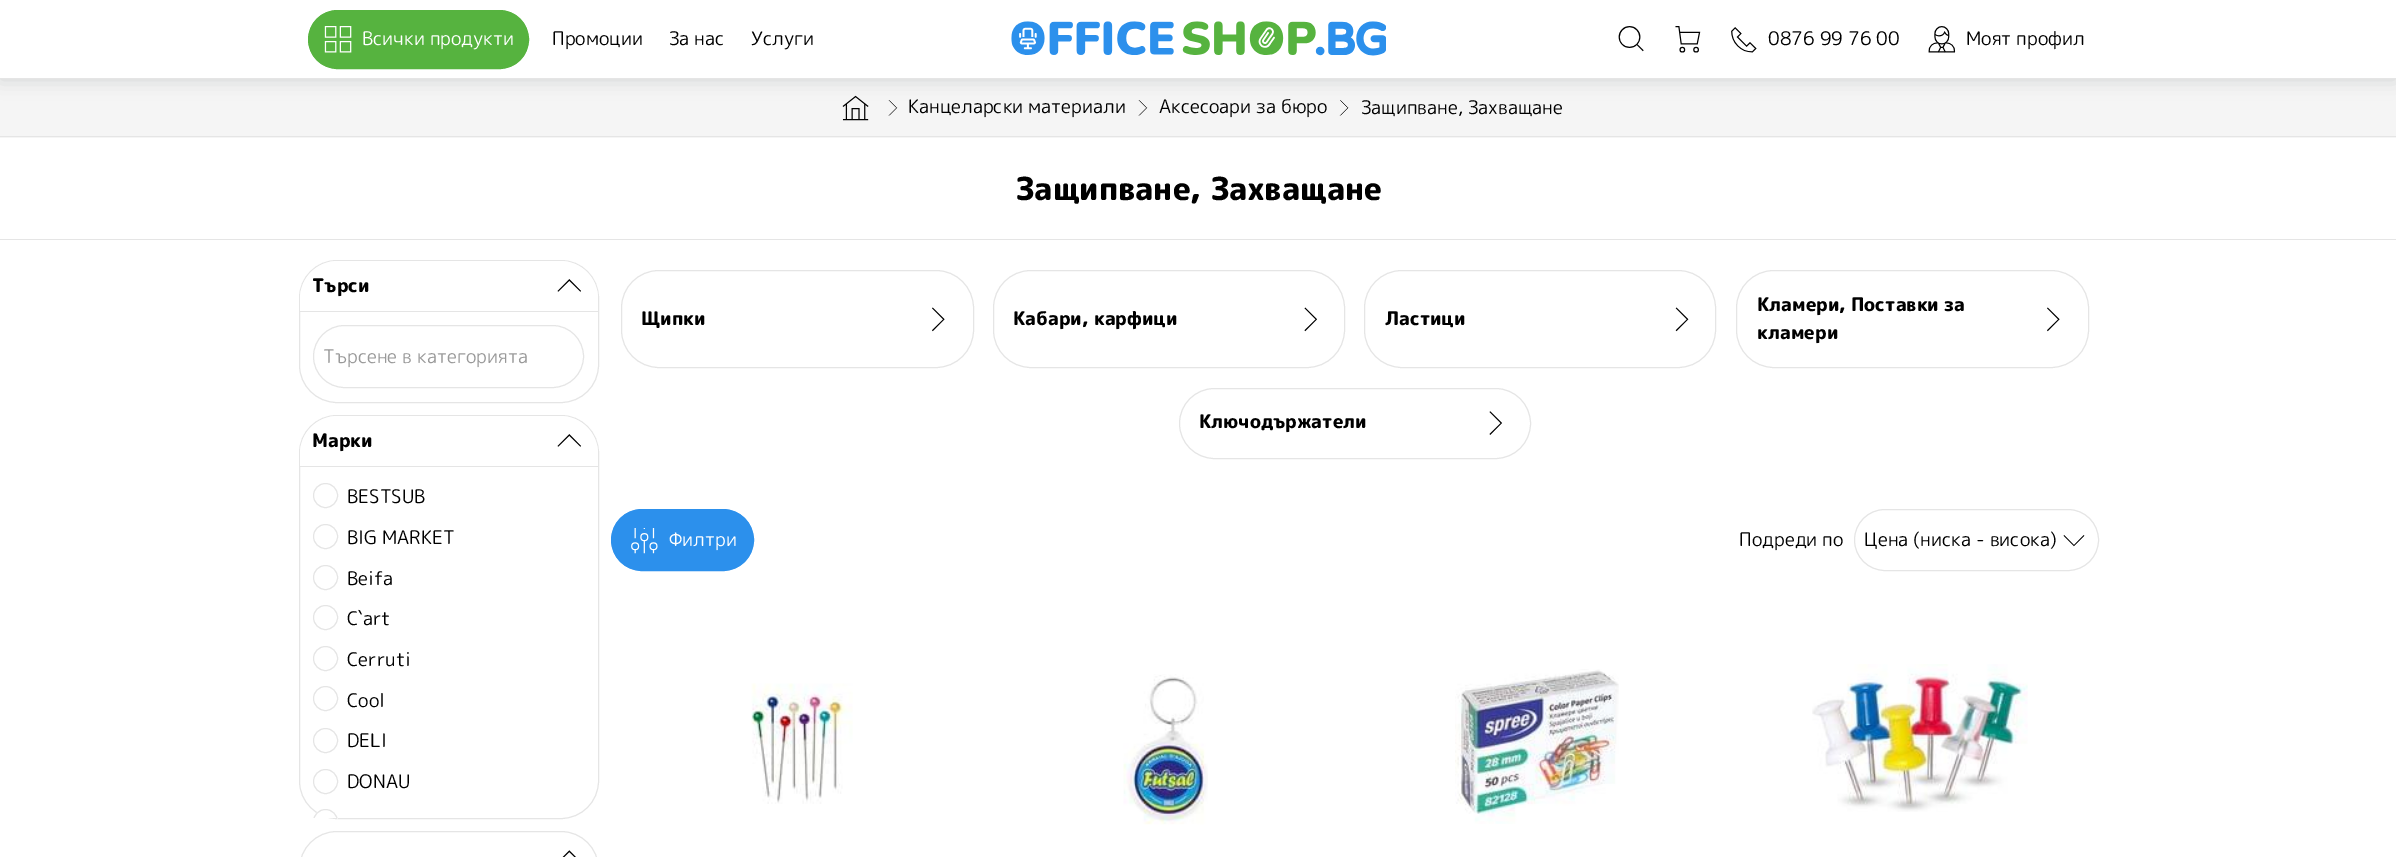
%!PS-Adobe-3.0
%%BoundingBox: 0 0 2396 857
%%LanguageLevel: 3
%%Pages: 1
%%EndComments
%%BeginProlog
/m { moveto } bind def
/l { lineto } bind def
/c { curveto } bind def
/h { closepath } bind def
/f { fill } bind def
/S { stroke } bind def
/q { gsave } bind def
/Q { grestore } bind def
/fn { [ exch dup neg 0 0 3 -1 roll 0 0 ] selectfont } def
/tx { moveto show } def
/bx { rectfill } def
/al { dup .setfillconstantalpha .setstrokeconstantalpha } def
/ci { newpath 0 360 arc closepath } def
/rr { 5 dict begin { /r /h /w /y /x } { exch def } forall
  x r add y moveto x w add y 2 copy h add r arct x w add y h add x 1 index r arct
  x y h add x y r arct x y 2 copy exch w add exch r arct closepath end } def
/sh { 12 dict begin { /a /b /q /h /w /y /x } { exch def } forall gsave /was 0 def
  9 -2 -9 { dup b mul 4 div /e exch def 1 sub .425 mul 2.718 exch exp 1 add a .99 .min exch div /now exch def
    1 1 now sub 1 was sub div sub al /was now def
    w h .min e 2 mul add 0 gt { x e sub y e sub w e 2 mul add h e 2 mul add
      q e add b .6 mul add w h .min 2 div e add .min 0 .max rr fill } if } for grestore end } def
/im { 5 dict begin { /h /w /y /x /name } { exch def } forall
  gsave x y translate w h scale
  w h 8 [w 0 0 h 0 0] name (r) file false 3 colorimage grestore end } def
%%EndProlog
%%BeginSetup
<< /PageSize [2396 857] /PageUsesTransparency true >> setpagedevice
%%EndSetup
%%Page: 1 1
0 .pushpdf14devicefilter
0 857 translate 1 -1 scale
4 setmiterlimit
1 setgray
0 0 2396 857 bx
0.961 setgray
0 79 2396 59 bx
(image6.raw) 842 95 27 26 im
(image7.raw) 888 100 10 16 im
(image7.raw) 1138 100 10 16 im
(image8.raw) 1339 100 10 16 im
0.016 0.039 0.063 setrgbcolor
0 0 2396 79 0 9.5 0.15 sh
1 setgray
0 0 2396 78 bx
0.898 setgray
0 78 2396 1 bx
0.337 0.702 0.247 setrgbcolor
308.5 10.5 220 58 29 rr q f Q
S
(image0.raw) 324 26 28 27 im
/RoundedMplus1c-Regular 18.75 fn
1 setgray
(Всички продукти) 362 45 tx
0 setgray
(Промоции) 552 45 tx
(За нас) 669 45 tx
(Услуги) 751 45 tx
(image1.raw) 1011 21 375 35 im
(image2.raw) 1618 26 26 26 im
(image3.raw) 1675 26 26 27 im
(image4.raw) 1731 27 26 26 im
(0876 99 76 00) 1768 45 tx
(image5.raw) 1928 26 28 27 im
(Моят профил) 1966 45 tx
0.898 setgray
0 136 2396 1 bx
0 setgray
(Канцеларски материали) 908 113 tx
(Аксесоари за бюро) 1159 113 tx
(Защипване, Захващане) 1361 114 tx
0.898 setgray
0 239 2396 1 bx
/RoundedMplus1c-ExtraBold 31.75 fn
0 setgray
(Защипване, Захващане) 1016 200 tx
0.898 setgray
299.5 260.5 299 142 37.5 rr S
1 setgray
338 261 m 560 261 l 581 261 598 278 598 299 c 598 311 l 300 311 l 300 299 l 300 278 317 261 338 261 c h f
/RoundedMplus1c-ExtraBold 18.75 fn
0 setgray
(Търси) 312 292 tx
(image9.raw) 557 279 24 13 im
0.898 setgray
300 311 298 1 bx
313.5 325.5 270 62 31 rr S
/RoundedMplus1c-Regular 18.75 fn
0.6 setgray
(Търсене в категорията) 323 363 tx
0.898 setgray
299.5 415.5 299 403 37.5 rr S
1 setgray
338 416 m 560 416 l 581 416 598 433 598 454 c 598 466 l 300 466 l 300 454 l 300 433 317 416 338 416 c h f
/RoundedMplus1c-ExtraBold 18.75 fn
0 setgray
(Марки) 312 447 tx
(image9.raw) 557 434 24 13 im
0.898 setgray
300 466 298 1 bx
325.5 495.5 12 ci S
/RoundedMplus1c-Regular 18.75 fn
0 setgray
(BESTSUB) 347 503 tx
0.898 setgray
325.5 536.5 12 ci S
0 setgray
(BIG MARKET) 347 544 tx
0.898 setgray
325.5 577.5 12 ci S
0 setgray
(Beifa) 347 585 tx
0.898 setgray
325.5 617.5 12 ci S
0 setgray
(C`art) 347 625 tx
0.898 setgray
325.5 658.5 12 ci S
0 setgray
(Cerruti) 347 666 tx
0.898 setgray
325.5 698.5 12 ci S
0 setgray
(Cool) 347 707 tx
0.898 setgray
325.5 740.5 12 ci S
0 setgray
(DELI) 347 747 tx
0.898 setgray
325.5 781.5 12 ci S
0 setgray
(DONAU) 347 788 tx
1 setgray
325.5 809 m 332.5 809 338 814.5 338 821.5 c 338 818 l 313 818 l 313 821.5 l 313 814.5 318.5 809 325.5 809 c h f
0.898 setgray
299.5 831.5 299 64 37.5 rr S
q
300 468 298 350 rectclip
325.5 821.5 12 ci S
Q
(image10.raw) 562 850 14 7 im
621.5 270.5 352 97 37.5 rr S
/RoundedMplus1c-ExtraBold 18.75 fn
0 setgray
(Щипки) 641 325 tx
(image11.raw) 932 307 13 25 im
0.898 setgray
993.5 270.5 351 97 37.5 rr S
0 setgray
(Кабари, карфици) 1013 325 tx
(image12.raw) 1304 307 13 25 im
0.898 setgray
1364.5 270.5 351 97 37.5 rr S
0 setgray
(Ластици) 1385 325 tx
(image13.raw) 1675 307 14 25 im
0.898 setgray
1736.5 270.5 352 97 37.5 rr S
0 setgray
(Кламери, Поставки за) 1757 311 tx
(image11.raw) 2047 307 13 25 im
(кламери) 1757 339 tx
0.898 setgray
1179.5 388.5 351 70 35 rr S
0 setgray
(Ключодържатели) 1199 428 tx
(image14.raw) 1489 411 13 24 im
0.173 0.565 0.925 setrgbcolor
611.5 509.5 142 61 30.5 rr q f Q
S
(image15.raw) 631 528 27 26 im
/RoundedMplus1c-Regular 18.75 fn
1 setgray
(Филтри) 669 546 tx
0 setgray
(Подреди по) 1739 546 tx
0.898 setgray
1854.5 509.5 244 61 30.5 rr S
0 setgray
(Цена \(ниска - висока\)) 1864 546 tx
(image16.raw) 2063 535 22 12 im
(image17.raw) 751 683 102 121 im
(image18.raw) 1123 674 85 151 im
(image19.raw) 1455 669 164 155 im
(image20.raw) 1812 664 216 148 im
.poppdf14devicefilter showpage
%%EOF
